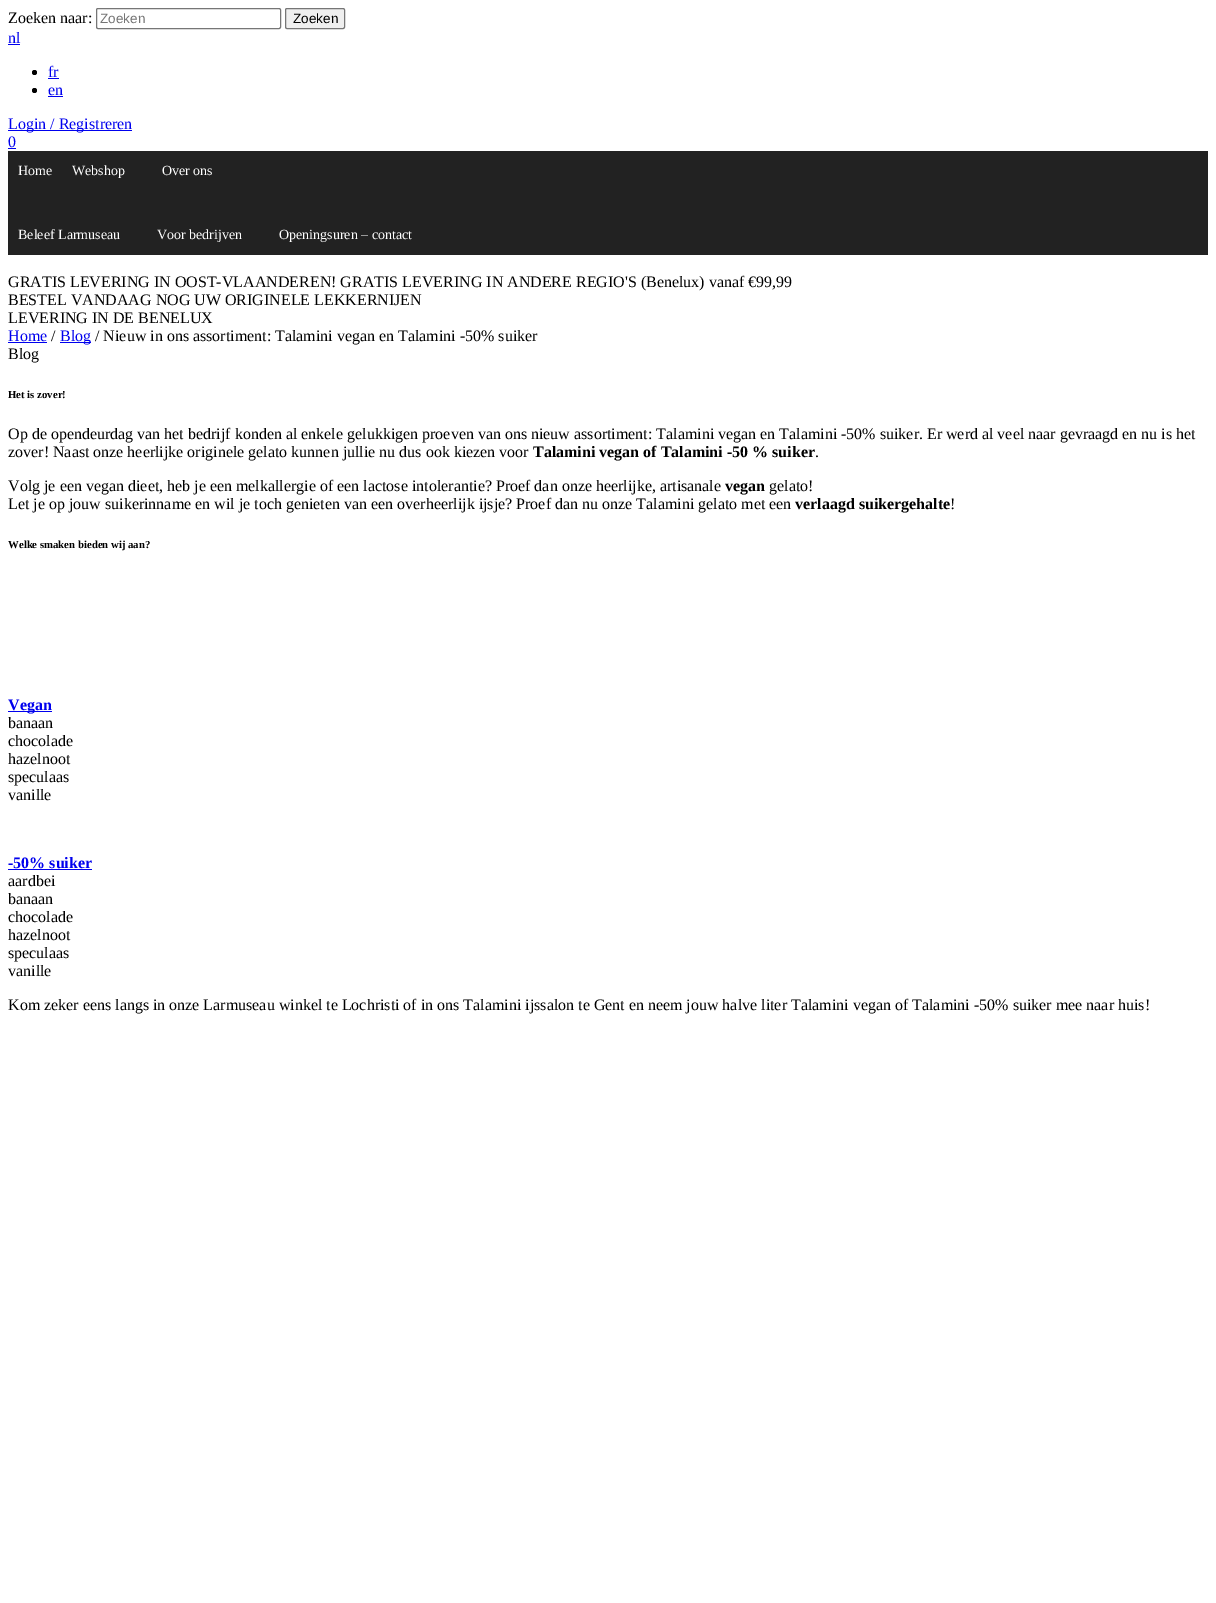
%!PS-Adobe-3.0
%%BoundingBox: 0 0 1216 1603
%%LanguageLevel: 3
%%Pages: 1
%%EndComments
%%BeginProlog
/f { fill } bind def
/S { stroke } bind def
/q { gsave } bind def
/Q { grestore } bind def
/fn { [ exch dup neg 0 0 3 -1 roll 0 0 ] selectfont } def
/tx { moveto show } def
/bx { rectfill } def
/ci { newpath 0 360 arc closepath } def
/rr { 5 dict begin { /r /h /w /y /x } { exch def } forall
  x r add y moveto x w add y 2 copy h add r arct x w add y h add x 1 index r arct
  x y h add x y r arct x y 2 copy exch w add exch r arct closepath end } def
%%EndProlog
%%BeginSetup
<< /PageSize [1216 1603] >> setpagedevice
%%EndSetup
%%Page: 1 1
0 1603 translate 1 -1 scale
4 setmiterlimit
1 setgray
0 0 1216 1603 bx
/LiberationSerif-Regular 16 fn
0 setgray
(Zoeken naar:) 8 23 tx
0.463 setgray
96.5 8.5 184 20 1.5 rr S
/LiberationSans-Regular 13.5 fn
0.459 setgray
(Zoeken) 100 23 tx
0.937 setgray
285.5 8.5 59 20 1.5 rr q f Q
0.463 setgray
S
0 setgray
(Zoeken) 293 23 tx
/LiberationSerif-Regular 16 fn
0 0 0.933 setrgbcolor
(nl) 8 43 tx
8 44 12 1 bx
0 setgray
34.5 72.5 2.5 ci f
0 0 0.933 setrgbcolor
(fr) 48 77 tx
48 78 11 1 bx
0 setgray
34.5 90.5 2.5 ci f
0 0 0.933 setrgbcolor
(en) 48 95 tx
48 96 15 1 bx
8 130 124 1 bx
(Login / Registreren) 8 129 tx
(0) 8 147 tx
8 148 8 1 bx
0.133 setgray
8 151 1200 104 bx
/LiberationSerif-Regular 14 fn
1 setgray
(Home) 18 175 tx
(Webshop) 72 175 tx
(Over ons) 162 175 tx
(Beleef Larmuseau) 18 239 tx
(Voor bedrijven) 157 239 tx
(Openingsuren – contact) 279 239 tx
/LiberationSerif-Regular 16 fn
0 setgray
(GRATIS LEVERING IN OOST-VLAANDEREN! GRATIS LEVERING IN ANDERE REGIO'S \(Benelux\) vanaf €99,99) 8 287 tx
(BESTEL VANDAAG NOG UW ORIGINELE LEKKERNIJEN) 8 305 tx
(LEVERING IN DE BENELUX) 8 323 tx
0 0 0.933 setrgbcolor
(Home) 8 341 tx
8 342 39 1 bx
0 setgray
(/) 51 341 tx
0 0 0.933 setrgbcolor
60 342 31 1 bx
(Blog) 60 341 tx
0 setgray
(/ Nieuw in ons assortiment: Talamini vegan en Talamini -50% suiker) 95 341 tx
(Blog) 8 359 tx
/LiberationSerif-Bold 10.75 fn
(Het is zover!) 8 398 tx
/LiberationSerif-Regular 16 fn
(Op de opendeurdag van het bedrijf konden al enkele gelukkigen proeven van ons nieuw assortiment: Talamini vegan en Talamini -50% suiker. Er werd al veel naar gevraagd en nu is het) 8 439 tx
(zover! Naast onze heerlijke originele gelato kunnen jullie nu dus ook kiezen voor) 8 457 tx
/LiberationSerif-Bold 16 fn
(Talamini vegan of Talamini -50 % suiker) 533 457 tx
/LiberationSerif-Regular 16 fn
(.) 815 457 tx
(Volg je een vegan dieet, heb je een melkallergie of een lactose intolerantie? Proef dan onze heerlijke, artisanale) 8 491 tx
/LiberationSerif-Bold 16 fn
(vegan) 725 491 tx
/LiberationSerif-Regular 16 fn
(gelato!) 769 491 tx
(Let je op jouw suikerinname en wil je toch genieten van een overheerlijk ijsje? Proef dan nu onze Talamini gelato met een) 8 509 tx
/LiberationSerif-Bold 16 fn
(verlaagd suikergehalte) 795 509 tx
/LiberationSerif-Regular 16 fn
(!) 950 509 tx
/LiberationSerif-Bold 10.75 fn
(Welke smaken bieden wij aan?) 8 548 tx
0 0 0.933 setrgbcolor
8 711 44 1 bx
/LiberationSerif-Bold 16 fn
(Vegan) 8 710 tx
/LiberationSerif-Regular 16 fn
0 setgray
(banaan) 8 728 tx
(chocolade) 8 746 tx
(hazelnoot) 8 764 tx
(speculaas) 8 782 tx
(vanille) 8 800 tx
/LiberationSerif-Bold 16 fn
0 0 0.933 setrgbcolor
(-50% suiker) 8 868 tx
8 869 84 1 bx
/LiberationSerif-Regular 16 fn
0 setgray
(aardbei) 8 886 tx
(banaan) 8 904 tx
(chocolade) 8 922 tx
(hazelnoot) 8 940 tx
(speculaas) 8 958 tx
(vanille) 8 976 tx
(Kom zeker eens langs in onze Larmuseau winkel te Lochristi of in ons Talamini ijssalon te Gent en neem jouw halve liter Talamini vegan of Talamini -50% suiker mee naar huis!) 8 1010 tx
showpage
%%EOF
